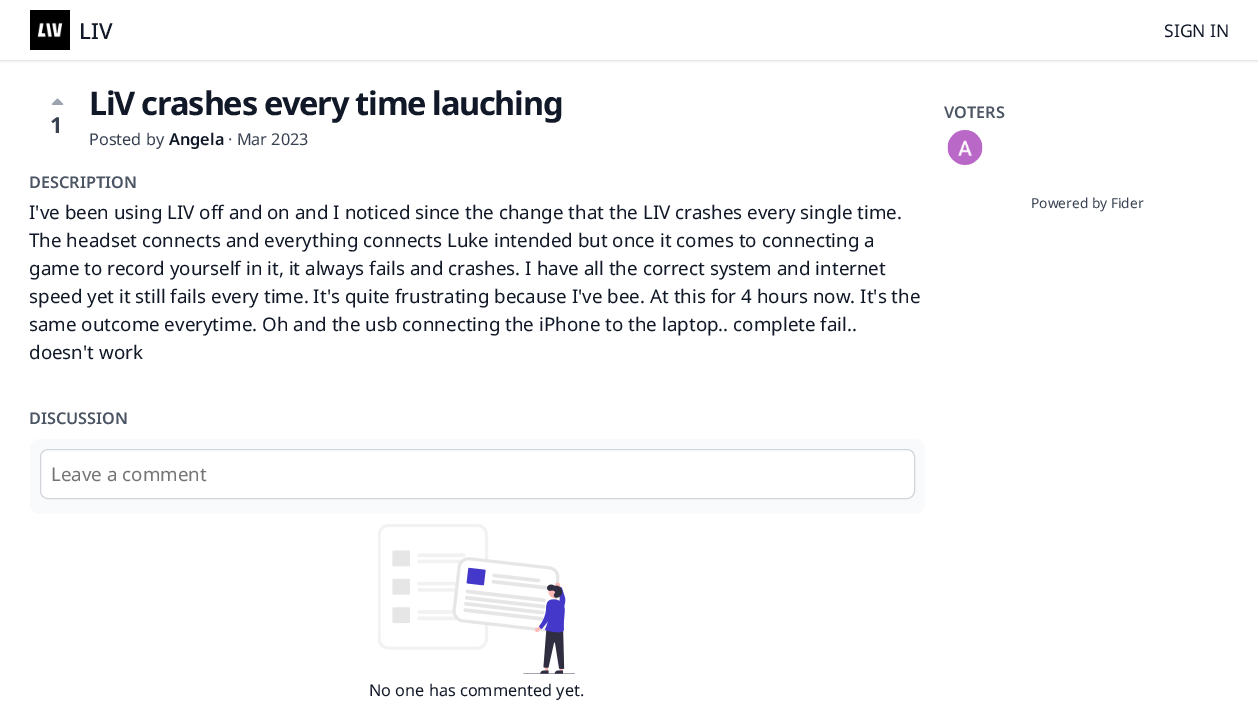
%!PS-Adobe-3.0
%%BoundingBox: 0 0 1258 710
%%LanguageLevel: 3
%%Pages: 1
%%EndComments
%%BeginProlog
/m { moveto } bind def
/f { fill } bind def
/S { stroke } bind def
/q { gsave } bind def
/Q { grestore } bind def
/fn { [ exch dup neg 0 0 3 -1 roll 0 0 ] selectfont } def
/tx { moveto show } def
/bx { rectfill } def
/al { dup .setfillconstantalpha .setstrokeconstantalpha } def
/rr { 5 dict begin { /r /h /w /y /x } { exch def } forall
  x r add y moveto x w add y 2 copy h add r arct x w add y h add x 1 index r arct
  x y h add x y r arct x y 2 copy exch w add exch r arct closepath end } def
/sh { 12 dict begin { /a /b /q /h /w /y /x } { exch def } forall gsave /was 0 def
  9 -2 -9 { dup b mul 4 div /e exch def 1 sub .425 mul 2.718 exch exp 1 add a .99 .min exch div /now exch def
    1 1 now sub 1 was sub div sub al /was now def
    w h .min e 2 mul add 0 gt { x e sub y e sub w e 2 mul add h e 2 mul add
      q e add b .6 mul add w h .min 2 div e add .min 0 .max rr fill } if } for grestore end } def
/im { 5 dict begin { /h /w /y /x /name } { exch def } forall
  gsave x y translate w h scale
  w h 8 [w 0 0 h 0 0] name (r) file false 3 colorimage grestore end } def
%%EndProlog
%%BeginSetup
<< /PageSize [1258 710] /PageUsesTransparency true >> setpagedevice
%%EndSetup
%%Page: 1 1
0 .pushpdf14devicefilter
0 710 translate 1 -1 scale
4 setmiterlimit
1 setgray
0 0 1258 710 bx
q
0 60 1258 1 rectclip
0 setgray
0 1 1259 60 0 1 0.06 sh
Q
q
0 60 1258 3 rectclip
0 setgray
0 1 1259 60 0 2 0.1 sh
Q
(image0.raw) 30 10 40 40 im
/NotoSans-Medium 22 fn
0.067 0.094 0.153 setrgbcolor
(LIV) 79 39 tx
/NotoSans-Regular 17.5 fn
(SIGN IN) 1164 37 tx
(image1.raw) 51 98 13 7 im
/NotoSans-Bold 22 fn
0.216 0.255 0.318 setrgbcolor
(1) 50 133 tx
/NotoSans-Bold 32.5 fn
0.067 0.094 0.153 setrgbcolor
89 115 m -1.25 0 (LiV crashes every time lauching) ashow
/NotoSans-Regular 16.25 fn
0.216 0.255 0.318 setrgbcolor
(Posted by) 89 145 tx
/NotoSans-SemiBold 16.25 fn
0.067 0.094 0.153 setrgbcolor
(Angela) 169 145 tx
/NotoSans-Regular 16.25 fn
0.216 0.255 0.318 setrgbcolor
(· Mar 2023) 228 145 tx
/NotoSans-SemiBold 16.25 fn
0.294 0.333 0.388 setrgbcolor
(DESCRIPTION) 29 188 tx
/NotoSans-Regular 18.75 fn
0.067 0.094 0.153 setrgbcolor
(I've been using LIV off and on and I noticed since the change that the LIV crashes every single time.) 29 219 tx
(The headset connects and everything connects Luke intended but once it comes to connecting a) 29 247 tx
(game to record yourself in it, it always fails and crashes. I have all the correct system and internet) 29 275 tx
(speed yet it still fails every time. It's quite frustrating because I've bee. At this for 4 hours now. It's the) 29 303 tx
(same outcome everytime. Oh and the usb connecting the iPhone to the laptop.. complete fail..) 29 331 tx
(doesn't work) 29 359 tx
/NotoSans-SemiBold 16.25 fn
0.294 0.333 0.388 setrgbcolor
(VOTERS) 944 118 tx
(image2.raw) 947 130 36 35 im
/NotoSans-Regular 13.75 fn
0.216 0.255 0.318 setrgbcolor
(Powered by Fider) 1031 208 tx
/NotoSans-SemiBold 16.25 fn
0.294 0.333 0.388 setrgbcolor
(DISCUSSION) 29 424 tx
0.976 0.98 0.984 setrgbcolor
30 439 895 75 10 rr f
1 setgray
40.5 449.5 874 49 7.5 rr q f Q
0.82 0.835 0.859 setrgbcolor
S
/NotoSans-Regular 18.75 fn
0.459 setgray
(Leave a comment) 51 481 tx
(image3.raw) 378 524 197 150 im
/NotoSans-Regular 16.25 fn
0.067 0.094 0.153 setrgbcolor
(No one has commented yet.) 369 696 tx
.poppdf14devicefilter showpage
%%EOF
